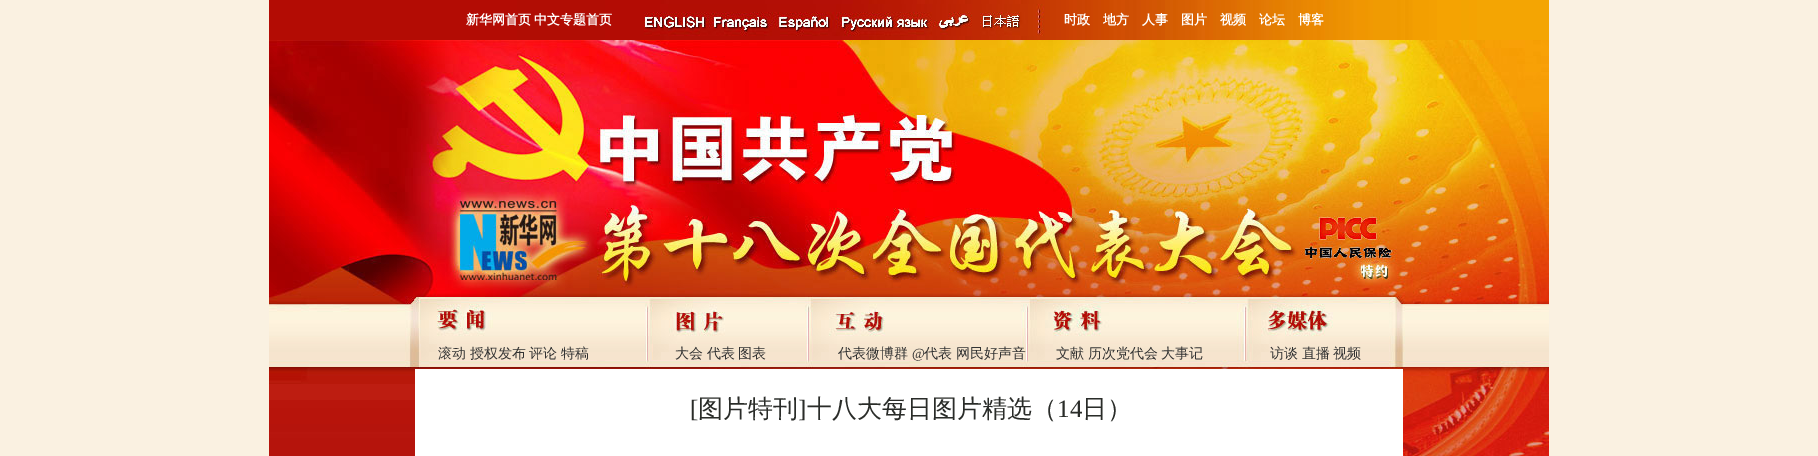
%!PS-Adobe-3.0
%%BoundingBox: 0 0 1818 456
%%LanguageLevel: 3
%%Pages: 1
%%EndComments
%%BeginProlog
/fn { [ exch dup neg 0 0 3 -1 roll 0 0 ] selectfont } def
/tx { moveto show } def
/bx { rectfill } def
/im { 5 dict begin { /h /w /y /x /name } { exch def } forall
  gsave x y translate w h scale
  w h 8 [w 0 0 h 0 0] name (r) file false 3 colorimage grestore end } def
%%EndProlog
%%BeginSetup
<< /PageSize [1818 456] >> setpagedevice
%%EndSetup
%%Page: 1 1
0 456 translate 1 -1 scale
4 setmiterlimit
0.98 0.945 0.882 setrgbcolor
0 0 1818 456 bx
(image0.raw) 269 0 1280 456 im
/WenQuanYiZenHei-Bold 13 fn
1 setgray
(新华网首页) 466 24 tx
(中文专题首页) 534 24 tx
(image1.raw) 644 4 400 32 im
(时政) 1064 24 tx
(地方) 1103 24 tx
(人事) 1142 24 tx
(图片) 1181 24 tx
(视频) 1220 24 tx
(论坛) 1259 24 tx
(博客) 1298 24 tx
/WenQuanYiZenHei-Medium 14 fn
0.2 setgray
(滚动) 438 358 tx
(授权发布) 470 358 tx
(评论) 529 358 tx
(特稿) 561 358 tx
(大会) 675 358 tx
(代表) 707 358 tx
(图表) 738 358 tx
(代表微博群) 838 358 tx
/LiberationSerif-Regular 14 fn
(@) 912 358 tx
/WenQuanYiZenHei-Medium 14 fn
(代表) 924 358 tx
(网民好声音) 956 358 tx
(文献) 1056 358 tx
(历次党代会) 1088 358 tx
(大事记) 1161 358 tx
(访谈) 1270 358 tx
(直播) 1302 358 tx
(视频) 1333 358 tx
1 setgray
415 369 988 87 bx
/LiberationSerif-Regular 25 fn
0.165 0.173 0.161 setrgbcolor
([) 690 417 tx
/WenQuanYiZenHei-Medium 25 fn
(图片特刊) 698 417 tx
/LiberationSerif-Regular 25 fn
(]) 798 417 tx
/WenQuanYiZenHei-Medium 25 fn
(十八大每日图片精选（) 807 417 tx
/LiberationSerif-Regular 25 fn
(14) 1057 417 tx
/WenQuanYiZenHei-Medium 25 fn
(日）) 1082 417 tx
showpage
%%EOF
